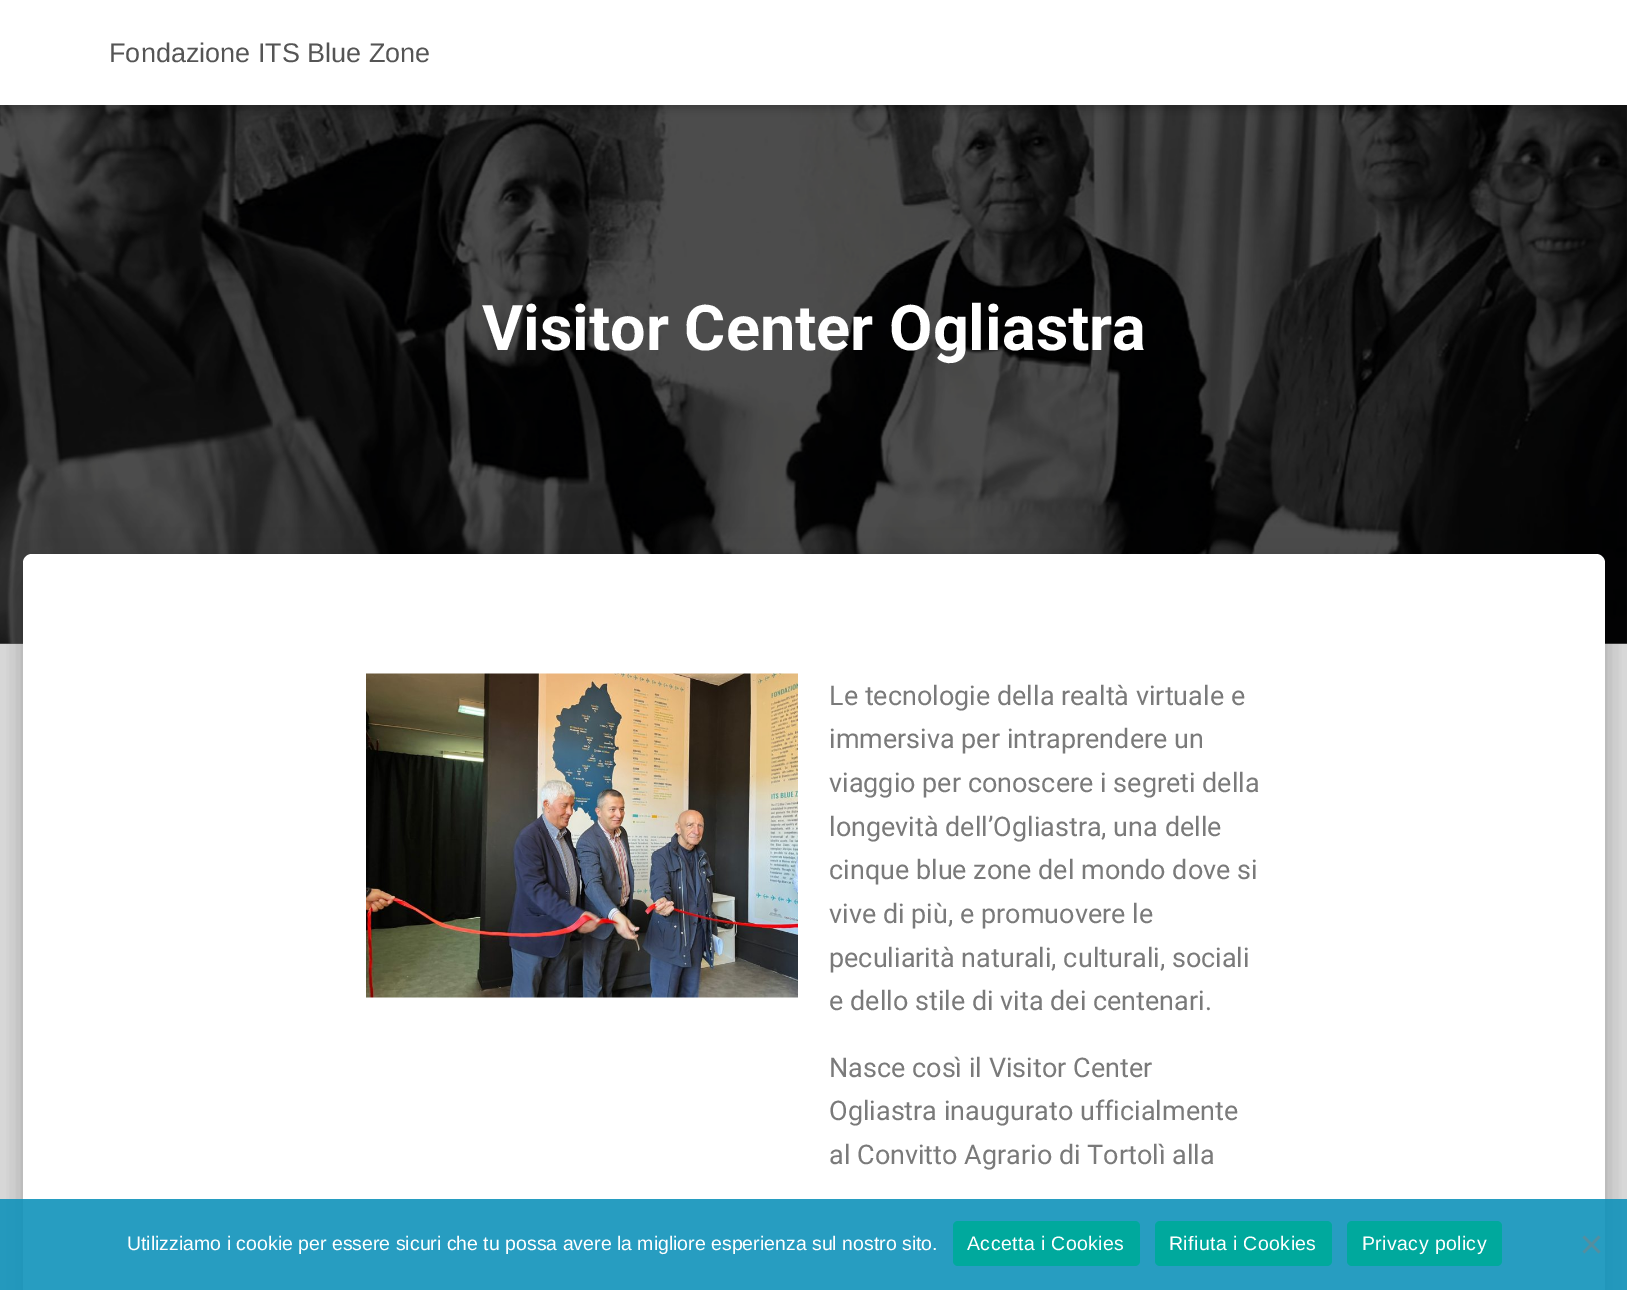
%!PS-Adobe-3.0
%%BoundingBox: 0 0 1627 1290
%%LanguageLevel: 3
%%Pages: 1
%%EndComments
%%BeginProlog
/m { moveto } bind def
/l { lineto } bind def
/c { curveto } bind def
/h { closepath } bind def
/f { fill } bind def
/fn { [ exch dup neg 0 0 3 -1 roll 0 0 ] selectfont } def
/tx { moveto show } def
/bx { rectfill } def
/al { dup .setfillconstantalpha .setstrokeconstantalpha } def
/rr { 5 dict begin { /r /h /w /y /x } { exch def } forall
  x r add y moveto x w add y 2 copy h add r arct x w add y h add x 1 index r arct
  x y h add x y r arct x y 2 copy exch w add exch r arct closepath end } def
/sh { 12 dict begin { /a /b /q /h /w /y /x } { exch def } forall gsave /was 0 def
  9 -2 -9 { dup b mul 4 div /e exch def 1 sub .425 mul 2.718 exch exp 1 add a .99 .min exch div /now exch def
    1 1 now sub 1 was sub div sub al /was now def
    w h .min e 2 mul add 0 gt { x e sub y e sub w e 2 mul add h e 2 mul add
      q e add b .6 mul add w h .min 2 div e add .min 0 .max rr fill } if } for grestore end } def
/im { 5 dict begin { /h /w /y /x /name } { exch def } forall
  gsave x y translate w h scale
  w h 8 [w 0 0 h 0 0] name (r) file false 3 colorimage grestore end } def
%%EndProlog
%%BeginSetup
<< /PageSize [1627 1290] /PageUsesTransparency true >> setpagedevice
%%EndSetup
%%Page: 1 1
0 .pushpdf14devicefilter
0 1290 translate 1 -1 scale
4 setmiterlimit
0.898 setgray
0 0 1627 1290 bx
0.451 setgray
0 105 1627 539 bx
(image0.raw) 0 105 1627 539 im
0 setgray
3 9 1622 99 0 4 0.1 sh
0 2 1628 105 0 7.5 0.12 sh
9 11 1610 87 0 7.5 0.42 sh
1 setgray
0 0 1627 105 bx
/LiberationSans-Regular 27 fn
0.333 setgray
(Fondazione ITS Blue Zone) 109 62 tx
/Roboto-Bold 63 fn
1 setgray
(Visitor Center Ogliastra) 482 350 tx
0 setgray
30 573 1568 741 1.5 7.5 0.2 sh
15 555 1598 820 17 22.5 0.12 sh
20 575 1588 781 12 18 0.14 sh
1 setgray
32 554 m 1596 554 l 1601 554 1605 558 1605 563 c 1605 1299 l 23 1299 l 23 563 l 23 558 27 554 32 554 c h f
(image1.raw) 366 673 432 325 im
/Roboto-Regular 27 fn
0.478 setgray
(Le tecnologie della realtà virtuale e) 829 705 tx
(immersiva per intraprendere un) 829 748 tx
(viaggio per conoscere i segreti della) 829 792 tx
(longevità dell’Ogliastra, una delle) 829 836 tx
(cinque blue zone del mondo dove si) 829 879 tx
(vive di più, e promuovere le) 829 923 tx
(peculiarità naturali, culturali, sociali) 829 967 tx
(e dello stile di vita dei centenari.) 829 1010 tx
(Nasce così il Visitor Center) 829 1077 tx
(Ogliastra inaugurato ufficialmente) 829 1120 tx
(al Convitto Agrario di Tortolì alla) 829 1164 tx
0.9 al
0.063 0.573 0.729 setrgbcolor
0 1199 1627 91 bx
/LiberationSans-Regular 19.5 fn
1 al
1 setgray
(Utilizziamo i cookie per essere sicuri che tu possa avere la migliore esperienza sul nostro sito.) 127 1250 tx
0 0.663 0.616 setrgbcolor
953 1221 187 45 5 rr f
1 setgray
967 1250 m 0.4 0 (Accetta i Cookies) ashow
0 0.663 0.616 setrgbcolor
1155 1221 177 45 5 rr f
1 setgray
1169 1250 m 0.4 0 (Rifiuta i Cookies) ashow
0 0.663 0.616 setrgbcolor
1347 1221 155 45 5 rr f
1 setgray
1362 1250 m 0.4 0 (Privacy policy) ashow
0.329 0.557 0.627 setrgbcolor
1598.5 1235.5 m 1600.5 1237.5 l 1584.5 1253.5 l 1582.5 1251.5 l h f
1582.5 1237.5 m 1584.5 1235.5 l 1600.5 1251.5 l 1598.5 1253.5 l h f
.poppdf14devicefilter showpage
%%EOF
